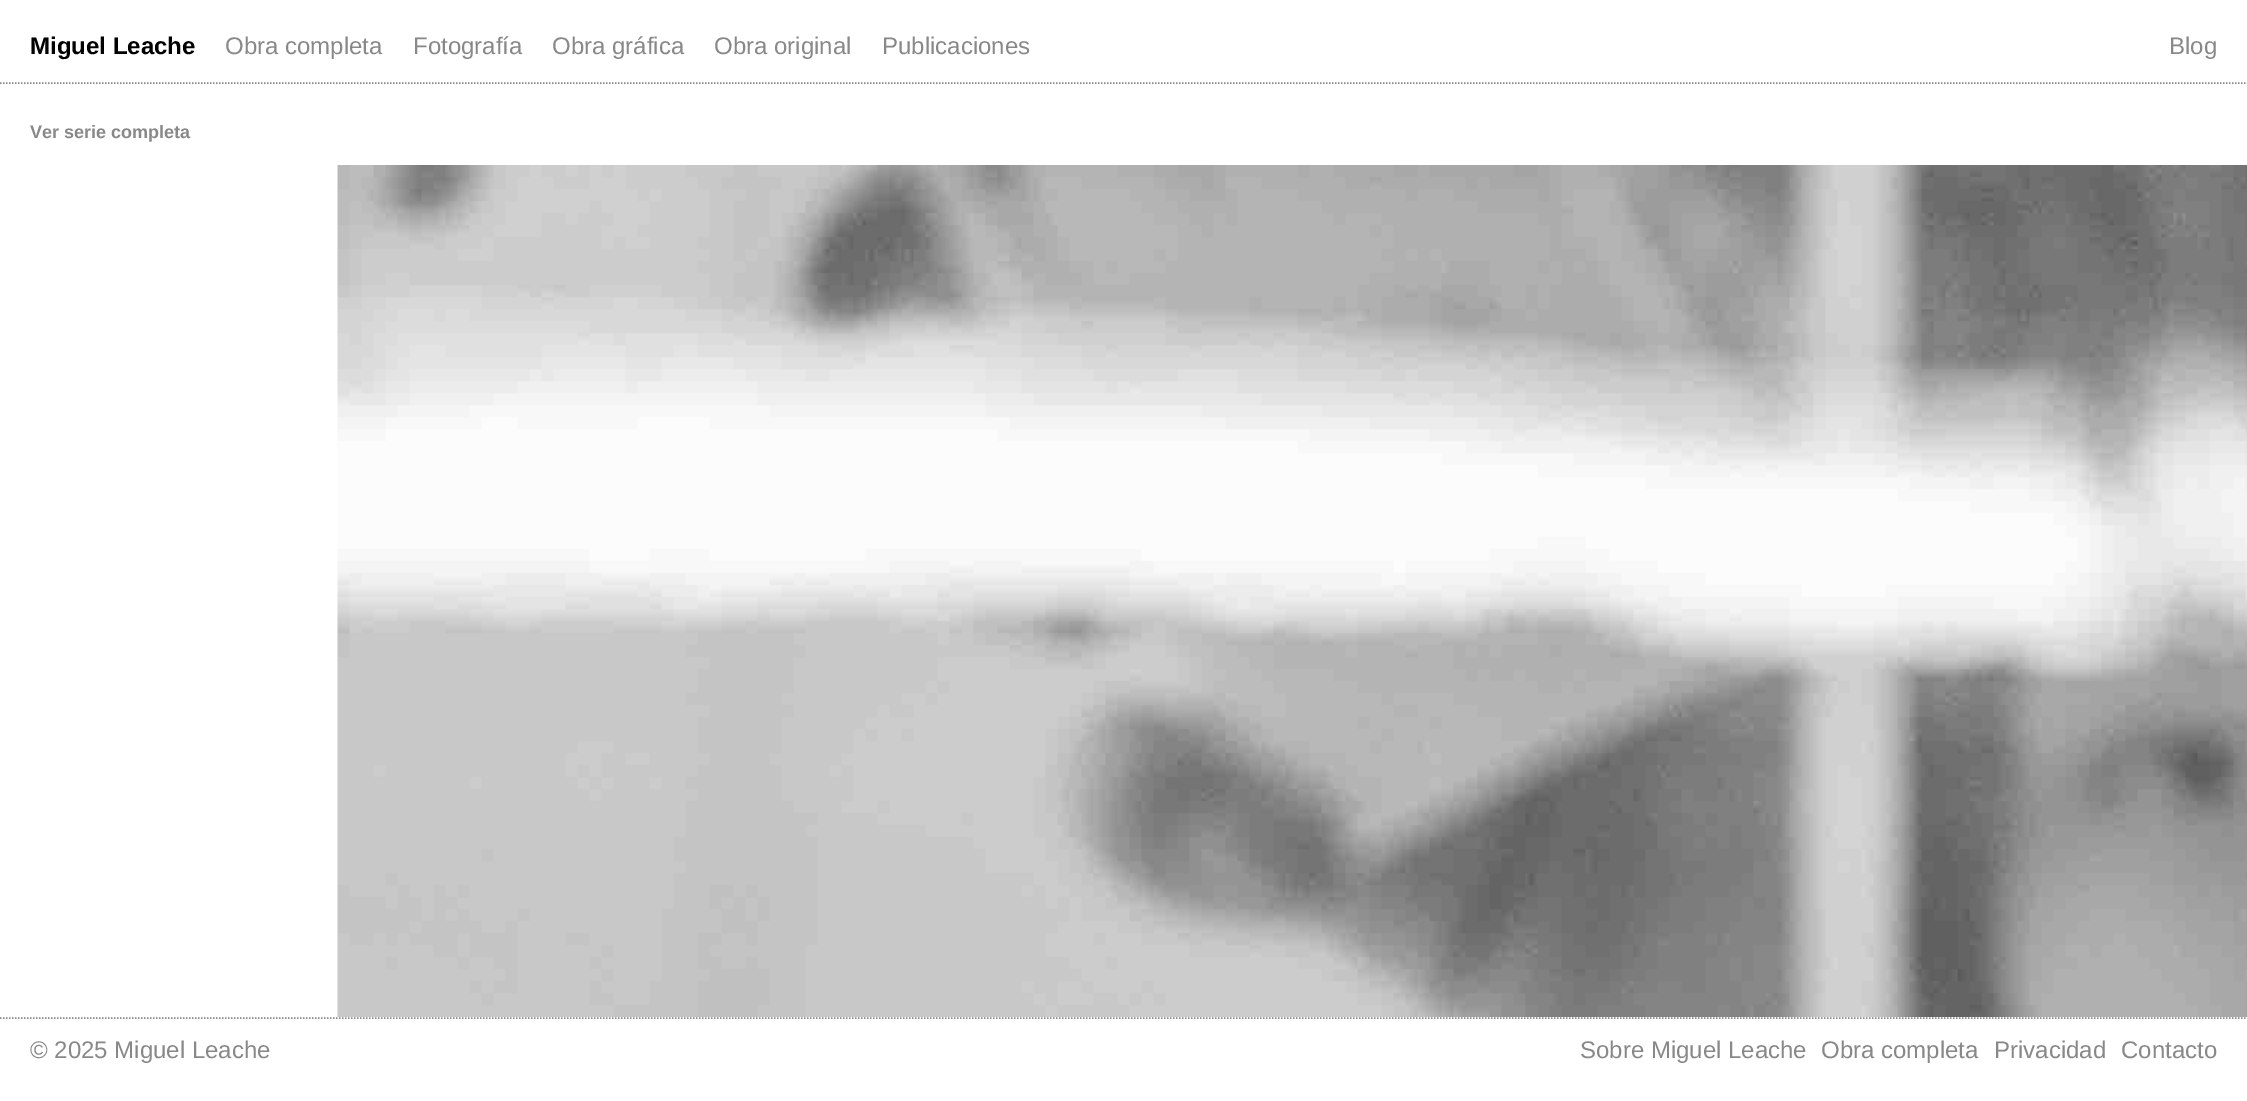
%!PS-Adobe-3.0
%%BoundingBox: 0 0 2247 1101
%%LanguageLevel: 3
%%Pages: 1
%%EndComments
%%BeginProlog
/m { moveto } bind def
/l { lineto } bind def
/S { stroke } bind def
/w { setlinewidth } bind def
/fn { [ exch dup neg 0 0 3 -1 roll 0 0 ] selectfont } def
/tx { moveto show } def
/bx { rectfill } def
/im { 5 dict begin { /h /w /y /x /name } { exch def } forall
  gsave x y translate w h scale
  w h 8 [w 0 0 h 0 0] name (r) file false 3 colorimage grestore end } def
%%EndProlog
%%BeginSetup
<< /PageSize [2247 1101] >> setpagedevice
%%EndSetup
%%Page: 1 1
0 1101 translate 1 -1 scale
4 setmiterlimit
1 setgray
0 0 2247 1101 bx
0.533 setgray
1.5 w
[1.5 1.5] 0 setdash
0 83 m 2247 83 l S
/LiberationSans-Bold 24 fn
0 setgray
(Miguel Leache) 30 54 tx
/LiberationSans-Regular 24 fn
0.533 setgray
(Obra completa) 225 54 tx
(Fotografía) 413 54 tx
(Obra gráfica) 552 54 tx
(Obra original) 714 54 tx
(Publicaciones) 882 54 tx
(Blog) 2169 54 tx
/LiberationSans-Bold 18 fn
(Ver serie completa) 30 138 tx
(image0.raw) 337 165 1910 852 im
0 1018 m 2247 1018 l S
/LiberationSans-Regular 24 fn
(© 2025 Miguel Leache) 30 1058 tx
(Sobre Miguel Leache) 1580 1058 tx
(Obra completa) 1821 1058 tx
(Privacidad) 1994 1058 tx
(Contacto) 2121 1058 tx
showpage
%%EOF
